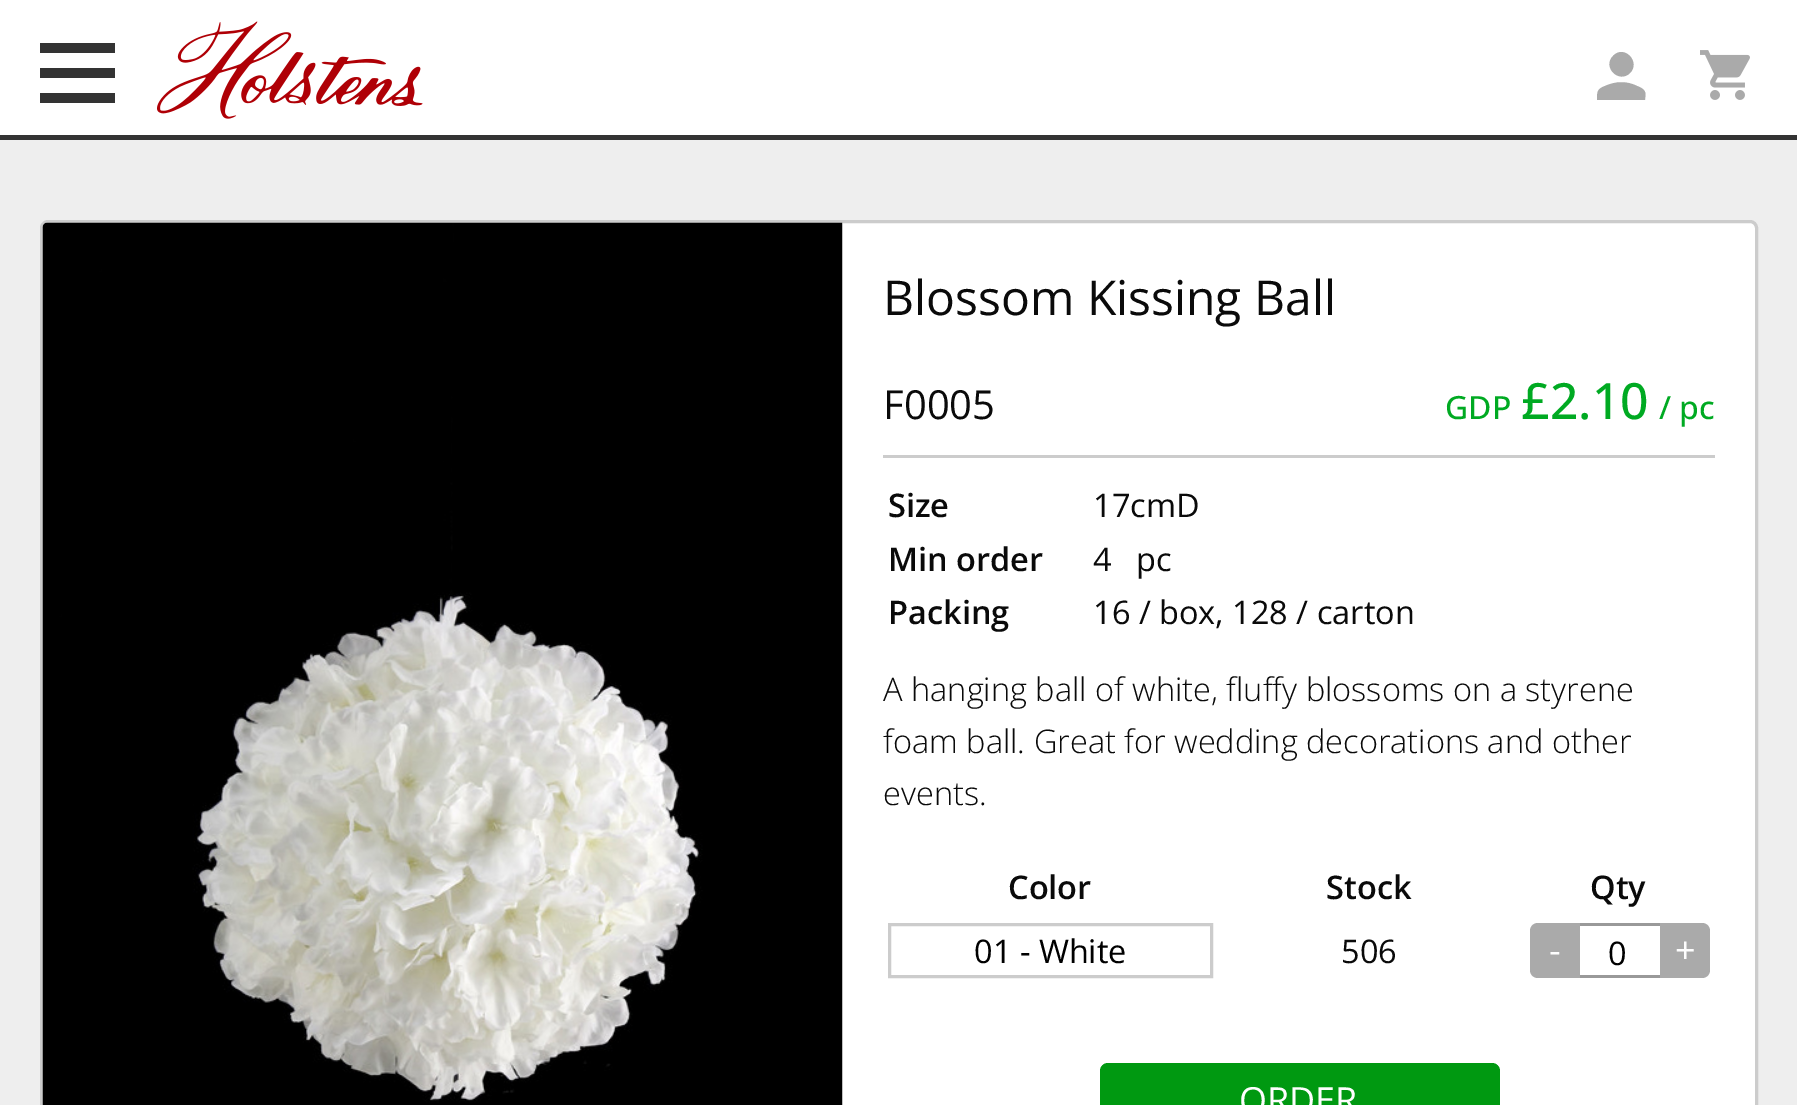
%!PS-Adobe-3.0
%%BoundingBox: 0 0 1797 1105
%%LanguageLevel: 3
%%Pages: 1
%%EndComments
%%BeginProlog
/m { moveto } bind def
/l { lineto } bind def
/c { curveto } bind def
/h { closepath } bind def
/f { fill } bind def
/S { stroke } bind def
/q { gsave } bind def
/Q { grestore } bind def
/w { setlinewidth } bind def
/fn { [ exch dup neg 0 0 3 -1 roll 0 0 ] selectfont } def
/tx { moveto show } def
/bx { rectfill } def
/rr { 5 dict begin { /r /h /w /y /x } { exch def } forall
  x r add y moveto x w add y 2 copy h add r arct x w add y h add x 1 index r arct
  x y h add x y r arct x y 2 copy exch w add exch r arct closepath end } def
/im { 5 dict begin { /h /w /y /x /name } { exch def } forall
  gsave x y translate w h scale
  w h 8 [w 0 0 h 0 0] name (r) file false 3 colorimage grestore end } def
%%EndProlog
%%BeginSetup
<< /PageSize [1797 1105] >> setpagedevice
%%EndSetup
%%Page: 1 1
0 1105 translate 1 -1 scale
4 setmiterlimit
0.933 setgray
0 0 1797 1105 bx
1 setgray
0 0 1797 135 bx
0.2 setgray
0 135 1797 5 bx
40 68 75 10 bx
40 43 75 10 bx
40 93 75 10 bx
(image0.raw) 157 21 266 98 im
0.667 setgray
1605 86 m 1616 81 1627 81 1637 86 c 1640 87 1644 89 1645 92 c 1646 94 1645 98 1645 100 c 1597 100 l 1597 92 1597 89 1605 86 c h 1630 73 m 1619 84 1602 67 1613 56 c 1624 44 1641 62 1630 73 c h f
(image1.raw) 1700 50 50 50 im
1 setgray
41.5 221.5 1715 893 6.5 rr q f Q
0.8 setgray
3 w
S
(image2.raw) 42 222 801 883 im
/OpenSans-Regular 48 fn
0.039 setgray
(Blossom Kissing Ball) 883 315 tx
/OpenSans-Regular 40 fn
(F0005) 883 419 tx
/OpenSans-Medium 32 fn
0 0.667 0.133 setrgbcolor
(GDP) 1445 419 tx
/OpenSans-Medium 50 fn
(£2.10) 1521 419 tx
/OpenSans-Medium 32 fn
(/ pc) 1659 419 tx
0.8 setgray
883 455 832 3 bx
/OpenSans-SemiBold 32.5 fn
0.039 setgray
(Size) 888 517 tx
/OpenSans-Regular 32.5 fn
(17cmD) 1093 517 tx
/OpenSans-SemiBold 32.5 fn
(Min order) 888 571 tx
/OpenSans-Regular 32.5 fn
(4) 1093 571 tx
(pc) 1136 571 tx
/OpenSans-SemiBold 32.5 fn
(Packing) 888 624 tx
/OpenSans-Regular 32.5 fn
(16 / box, 128 / carton) 1093 624 tx
/OpenSans-Light 32.5 fn
(A hanging ball of white, fluffy blossoms on a styrene) 883 701 tx
(foam ball. Great for wedding decorations and other) 883 753 tx
(events.) 883 805 tx
/OpenSans-SemiBold 32.5 fn
(Color) 1008 899 tx
(Stock) 1326 899 tx
(Qty) 1590 899 tx
0.8 setgray
889.5 924.5 322 52 rectstroke
/OpenSans-Regular 32.5 fn
0 setgray
(01 - White) 974 963 tx
0.039 setgray
(506) 1341 963 tx
0.667 setgray
1538 923 m 1580 923 l 1580 978 l 1538 978 l 1533.5 978 1530 974.5 1530 970 c 1530 931 l 1530 926.5 1533.5 923 1538 923 c h f
/OpenSans-Regular 36 fn
0.996 setgray
(-) 1549 963 tx
0.6 setgray
1580 923 80 3 bx
1580 975 80 3 bx
/OpenSans-Regular 32.5 fn
0 setgray
(0) 1608 965 tx
0.667 setgray
1660 923 m 1702 923 l 1706.5 923 1710 926.5 1710 931 c 1710 970 l 1710 974.5 1706.5 978 1702 978 c 1660 978 l h f
/OpenSans-Regular 36 fn
0.996 setgray
(+) 1675 963 tx
0 0.6 0.067 setrgbcolor
1100 1063 400 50 8 rr f
0.996 setgray
(ORDER) 1239 1113 tx
showpage
%%EOF
